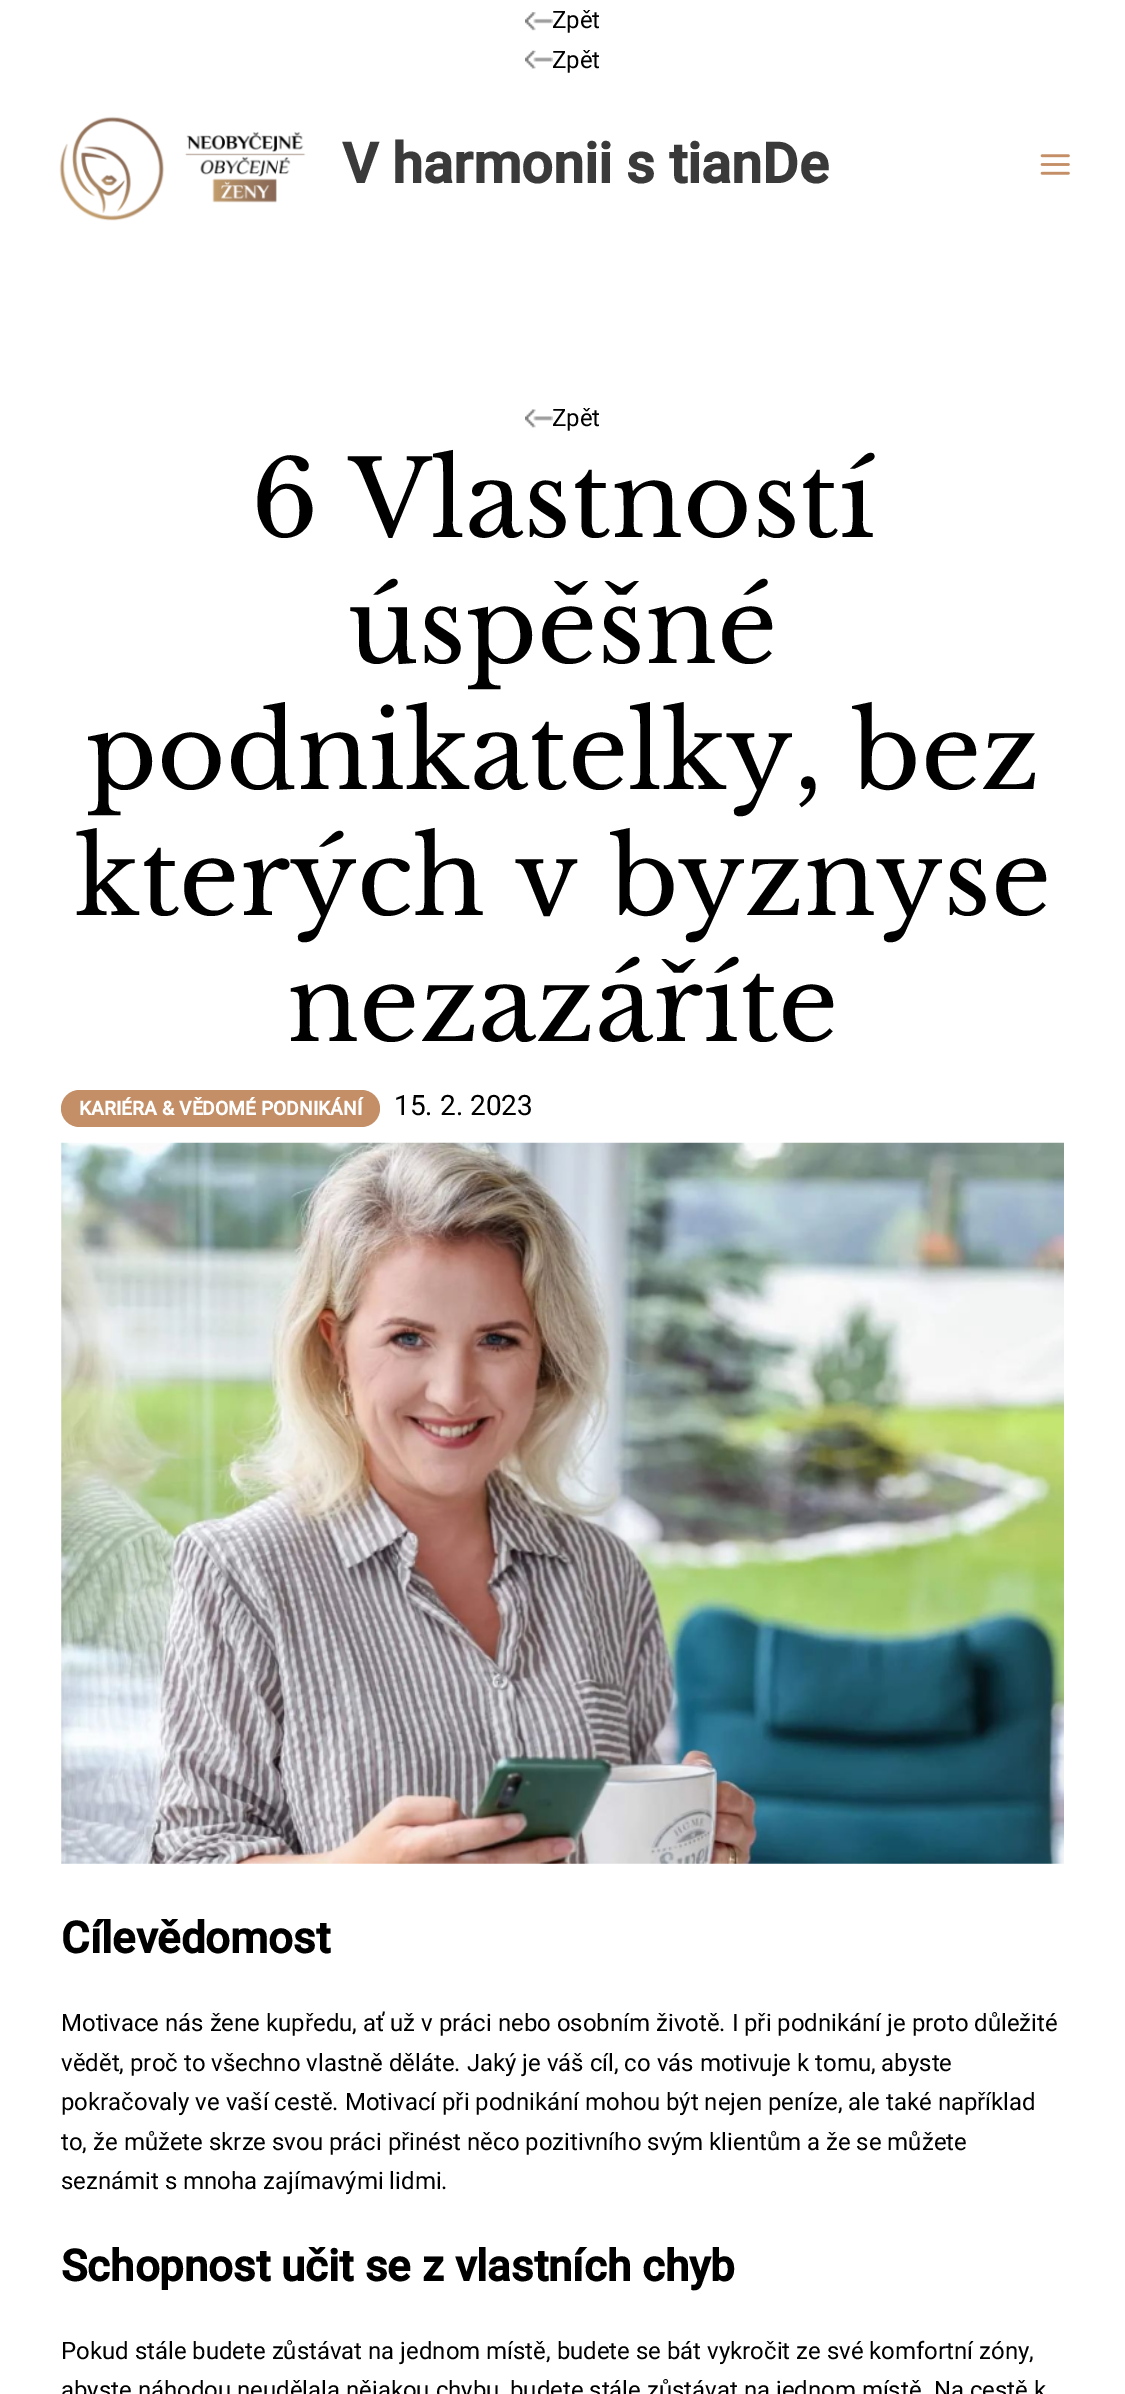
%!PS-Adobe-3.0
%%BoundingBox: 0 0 1125 2394
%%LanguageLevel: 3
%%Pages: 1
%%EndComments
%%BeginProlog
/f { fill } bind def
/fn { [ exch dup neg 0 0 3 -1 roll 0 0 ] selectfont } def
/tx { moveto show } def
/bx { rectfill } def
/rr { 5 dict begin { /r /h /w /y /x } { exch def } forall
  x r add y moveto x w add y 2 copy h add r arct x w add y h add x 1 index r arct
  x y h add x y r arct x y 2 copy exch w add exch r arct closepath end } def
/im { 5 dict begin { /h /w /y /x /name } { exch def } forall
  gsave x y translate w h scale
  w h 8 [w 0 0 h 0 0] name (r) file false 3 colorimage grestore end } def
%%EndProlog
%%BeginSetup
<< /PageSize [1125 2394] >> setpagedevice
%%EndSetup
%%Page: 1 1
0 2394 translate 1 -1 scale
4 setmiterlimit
1 setgray
0 0 1125 2394 bx
(image0.raw) 525 12 28 19 im
/Roboto-Regular 23.95 fn
0 setgray
(Zpět) 552 28 tx
(image1.raw) 525 50 28 19 im
(Zpět) 552 68 tx
(image2.raw) 59 116 247 105 im
/Roboto-Bold 55.75 fn
0.227 setgray
(V harmonii s tianDe) 342 183 tx
(image3.raw) 1040 154 30 21 im
(image4.raw) 525 409 28 19 im
/Roboto-Regular 23.95 fn
0 setgray
(Zpět) 552 426 tx
/LibreBaskerville-Regular 105 fn
(6 Vlastností) 251 537 tx
(úspěšné) 348 663 tx
(podnikatelky, bez) 86 789 tx
(kterých v byznyse) 75 915 tx
(nezazáříte) 287 1041 tx
0.769 0.561 0.404 setrgbcolor
61 1090 319 37 18.5 rr f
/Roboto-Bold 19.25 fn
1 setgray
(KARIÉRA & VĚDOMÉ PODNIKÁNÍ) 79 1115 tx
/Roboto-Regular 28 fn
0 setgray
(15. 2. 2023) 394 1115 tx
(image5.raw) 61 1142 1003 722 im
/Roboto-Bold 43.75 fn
(Cílevědomost) 61 1953 tx
/Roboto-Regular 23.95 fn
(Motivace nás žene kupředu, ať už v práci nebo osobním životě. I při podnikání je proto důležité) 61 2031 tx
(vědět, proč to všechno vlastně děláte. Jaký je váš cíl, co vás motivuje k tomu, abyste) 61 2071 tx
(pokračovaly ve vaší cestě. Motivací při podnikání mohou být nejen peníze, ale také například) 61 2110 tx
(to, že můžete skrze svou práci přinést něco pozitivního svým klientům a že se můžete) 61 2150 tx
(seznámit s mnoha zajímavými lidmi.) 61 2189 tx
/Roboto-Bold 43.75 fn
(Schopnost učit se z vlastních chyb) 61 2281 tx
/Roboto-Regular 23.95 fn
(Pokud stále budete zůstávat na jednom místě, budete se bát vykročit ze své komfortní zóny,) 61 2359 tx
(abyste náhodou neudělala nějakou chybu, budete stále zůstávat na jednom místě. Na cestě k) 61 2398 tx
showpage
%%EOF
